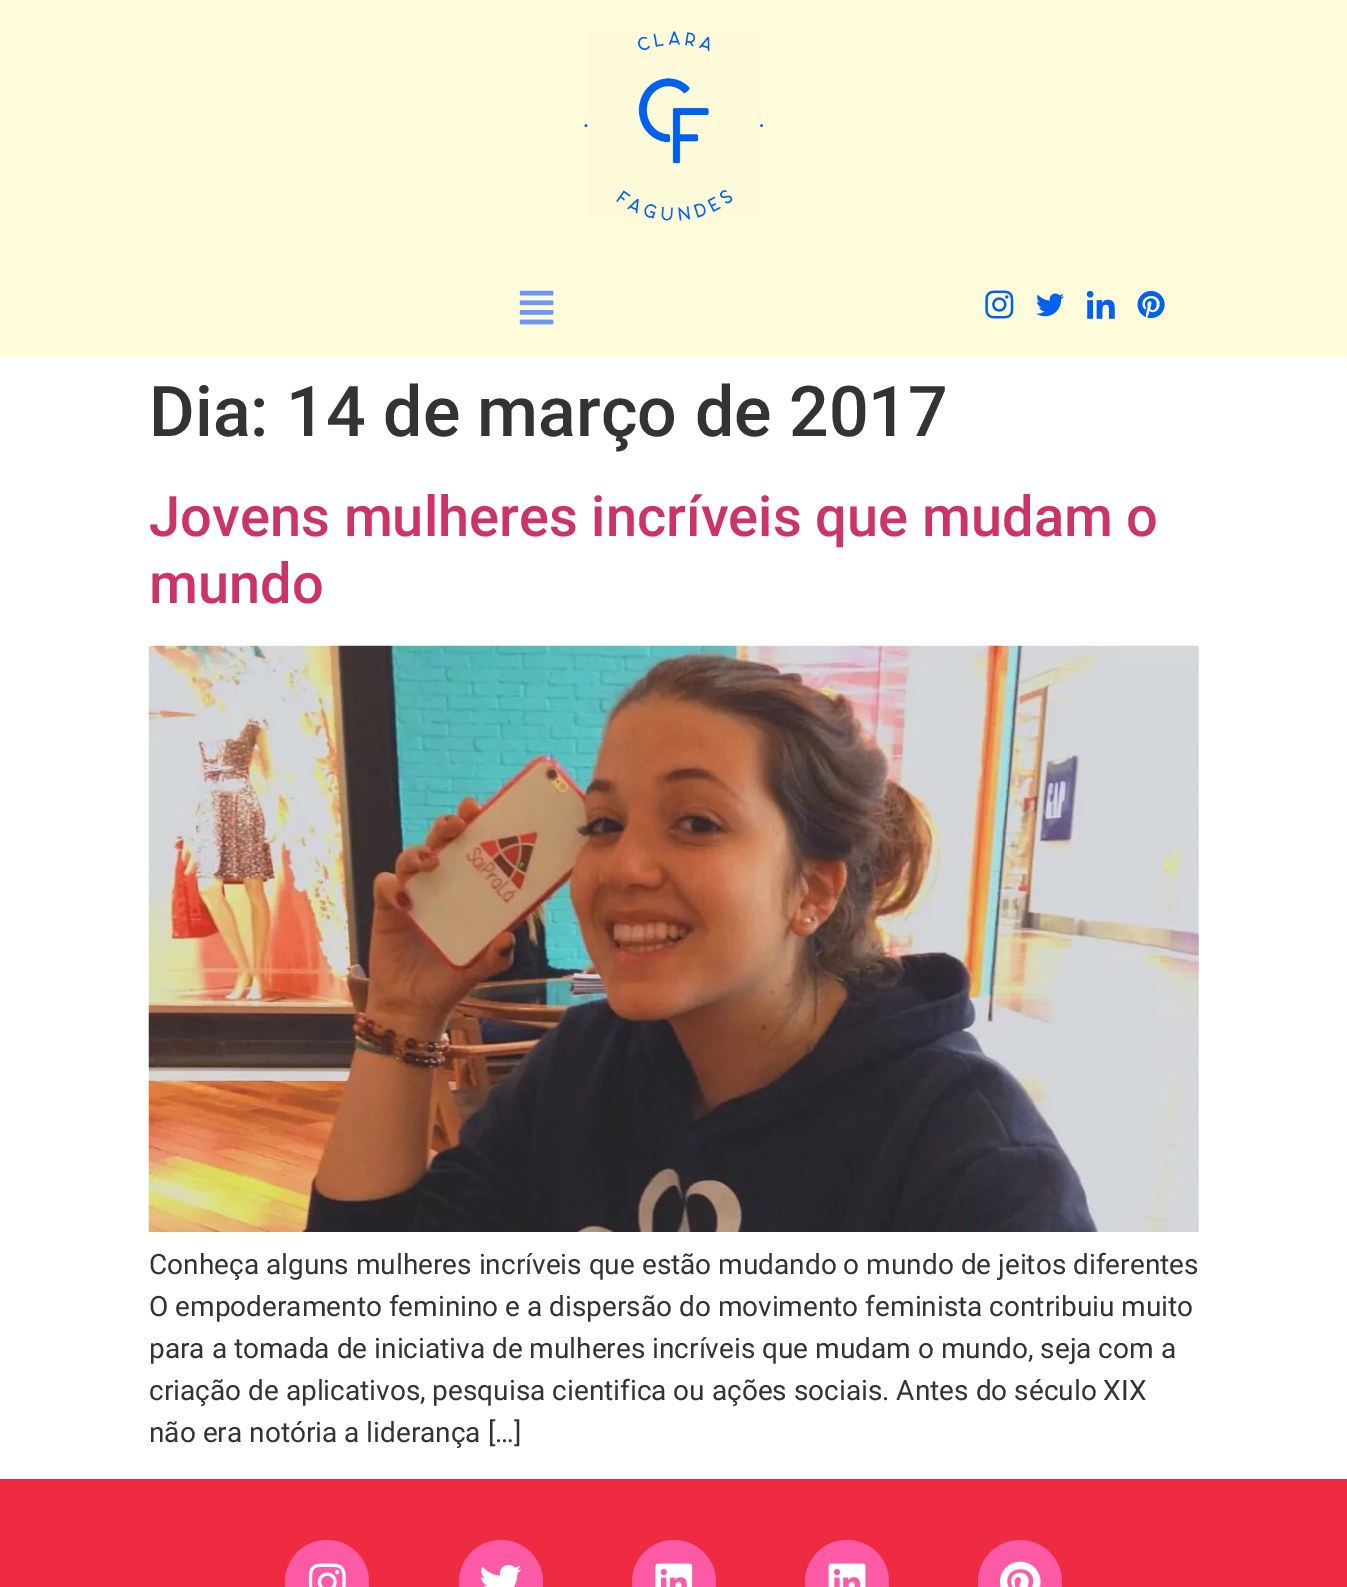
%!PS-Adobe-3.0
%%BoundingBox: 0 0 1347 1587
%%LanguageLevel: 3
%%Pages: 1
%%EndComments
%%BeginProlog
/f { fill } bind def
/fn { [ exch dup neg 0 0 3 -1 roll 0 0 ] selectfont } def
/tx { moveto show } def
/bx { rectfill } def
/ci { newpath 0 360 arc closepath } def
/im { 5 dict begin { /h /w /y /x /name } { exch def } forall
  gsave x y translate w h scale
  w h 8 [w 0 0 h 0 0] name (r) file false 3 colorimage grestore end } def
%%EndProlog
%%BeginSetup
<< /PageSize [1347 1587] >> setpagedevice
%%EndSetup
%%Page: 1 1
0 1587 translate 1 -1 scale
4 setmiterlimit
1 setgray
0 0 1347 1587 bx
1 0.988 0.859 setrgbcolor
0 0 1347 357 bx
(image0.raw) 584 31 179 190 im
(image1.raw) 519 290 35 35 im
(image2.raw) 985 290 29 29 im
(image3.raw) 1036 293 28 24 im
(image4.raw) 1086 290 29 29 im
(image5.raw) 1137 290 28 29 im
/Roboto-Medium 70 fn
0.2 setgray
(Dia: 14 de março de 2017) 149 436 tx
/Roboto-Medium 56 fn
0.8 0.2 0.4 setrgbcolor
(Jovens mulheres incríveis que mudam o) 149 536 tx
(mundo) 149 603 tx
(image6.raw) 148 645 1051 587 im
/Roboto-Regular 28 fn
0.2 setgray
(Conheça alguns mulheres incríveis que estão mudando o mundo de jeitos diferentes) 149 1274 tx
(O empoderamento feminino e a dispersão do movimento feminista contribuiu muito) 149 1316 tx
(para a tomada de iniciativa de mulheres incríveis que mudam o mundo, seja com a) 149 1358 tx
(criação de aplicativos, pesquisa cientifica ou ações sociais. Antes do século XIX) 149 1400 tx
(não era notória a liderança […]) 149 1442 tx
0.937 0.169 0.259 setrgbcolor
0 1479 1347 108 bx
1 0.353 0.647 setrgbcolor
327 1582 42 ci f
(image7.raw) 308 1563 38 24 im
501 1582 42 ci f
(image8.raw) 481 1564 41 23 im
674 1582 42 ci f
(image9.raw) 655 1563 38 24 im
847 1582 42 ci f
(image10.raw) 828 1563 38 24 im
1020 1582 42 ci f
(image11.raw) 999 1561 42 26 im
showpage
%%EOF
